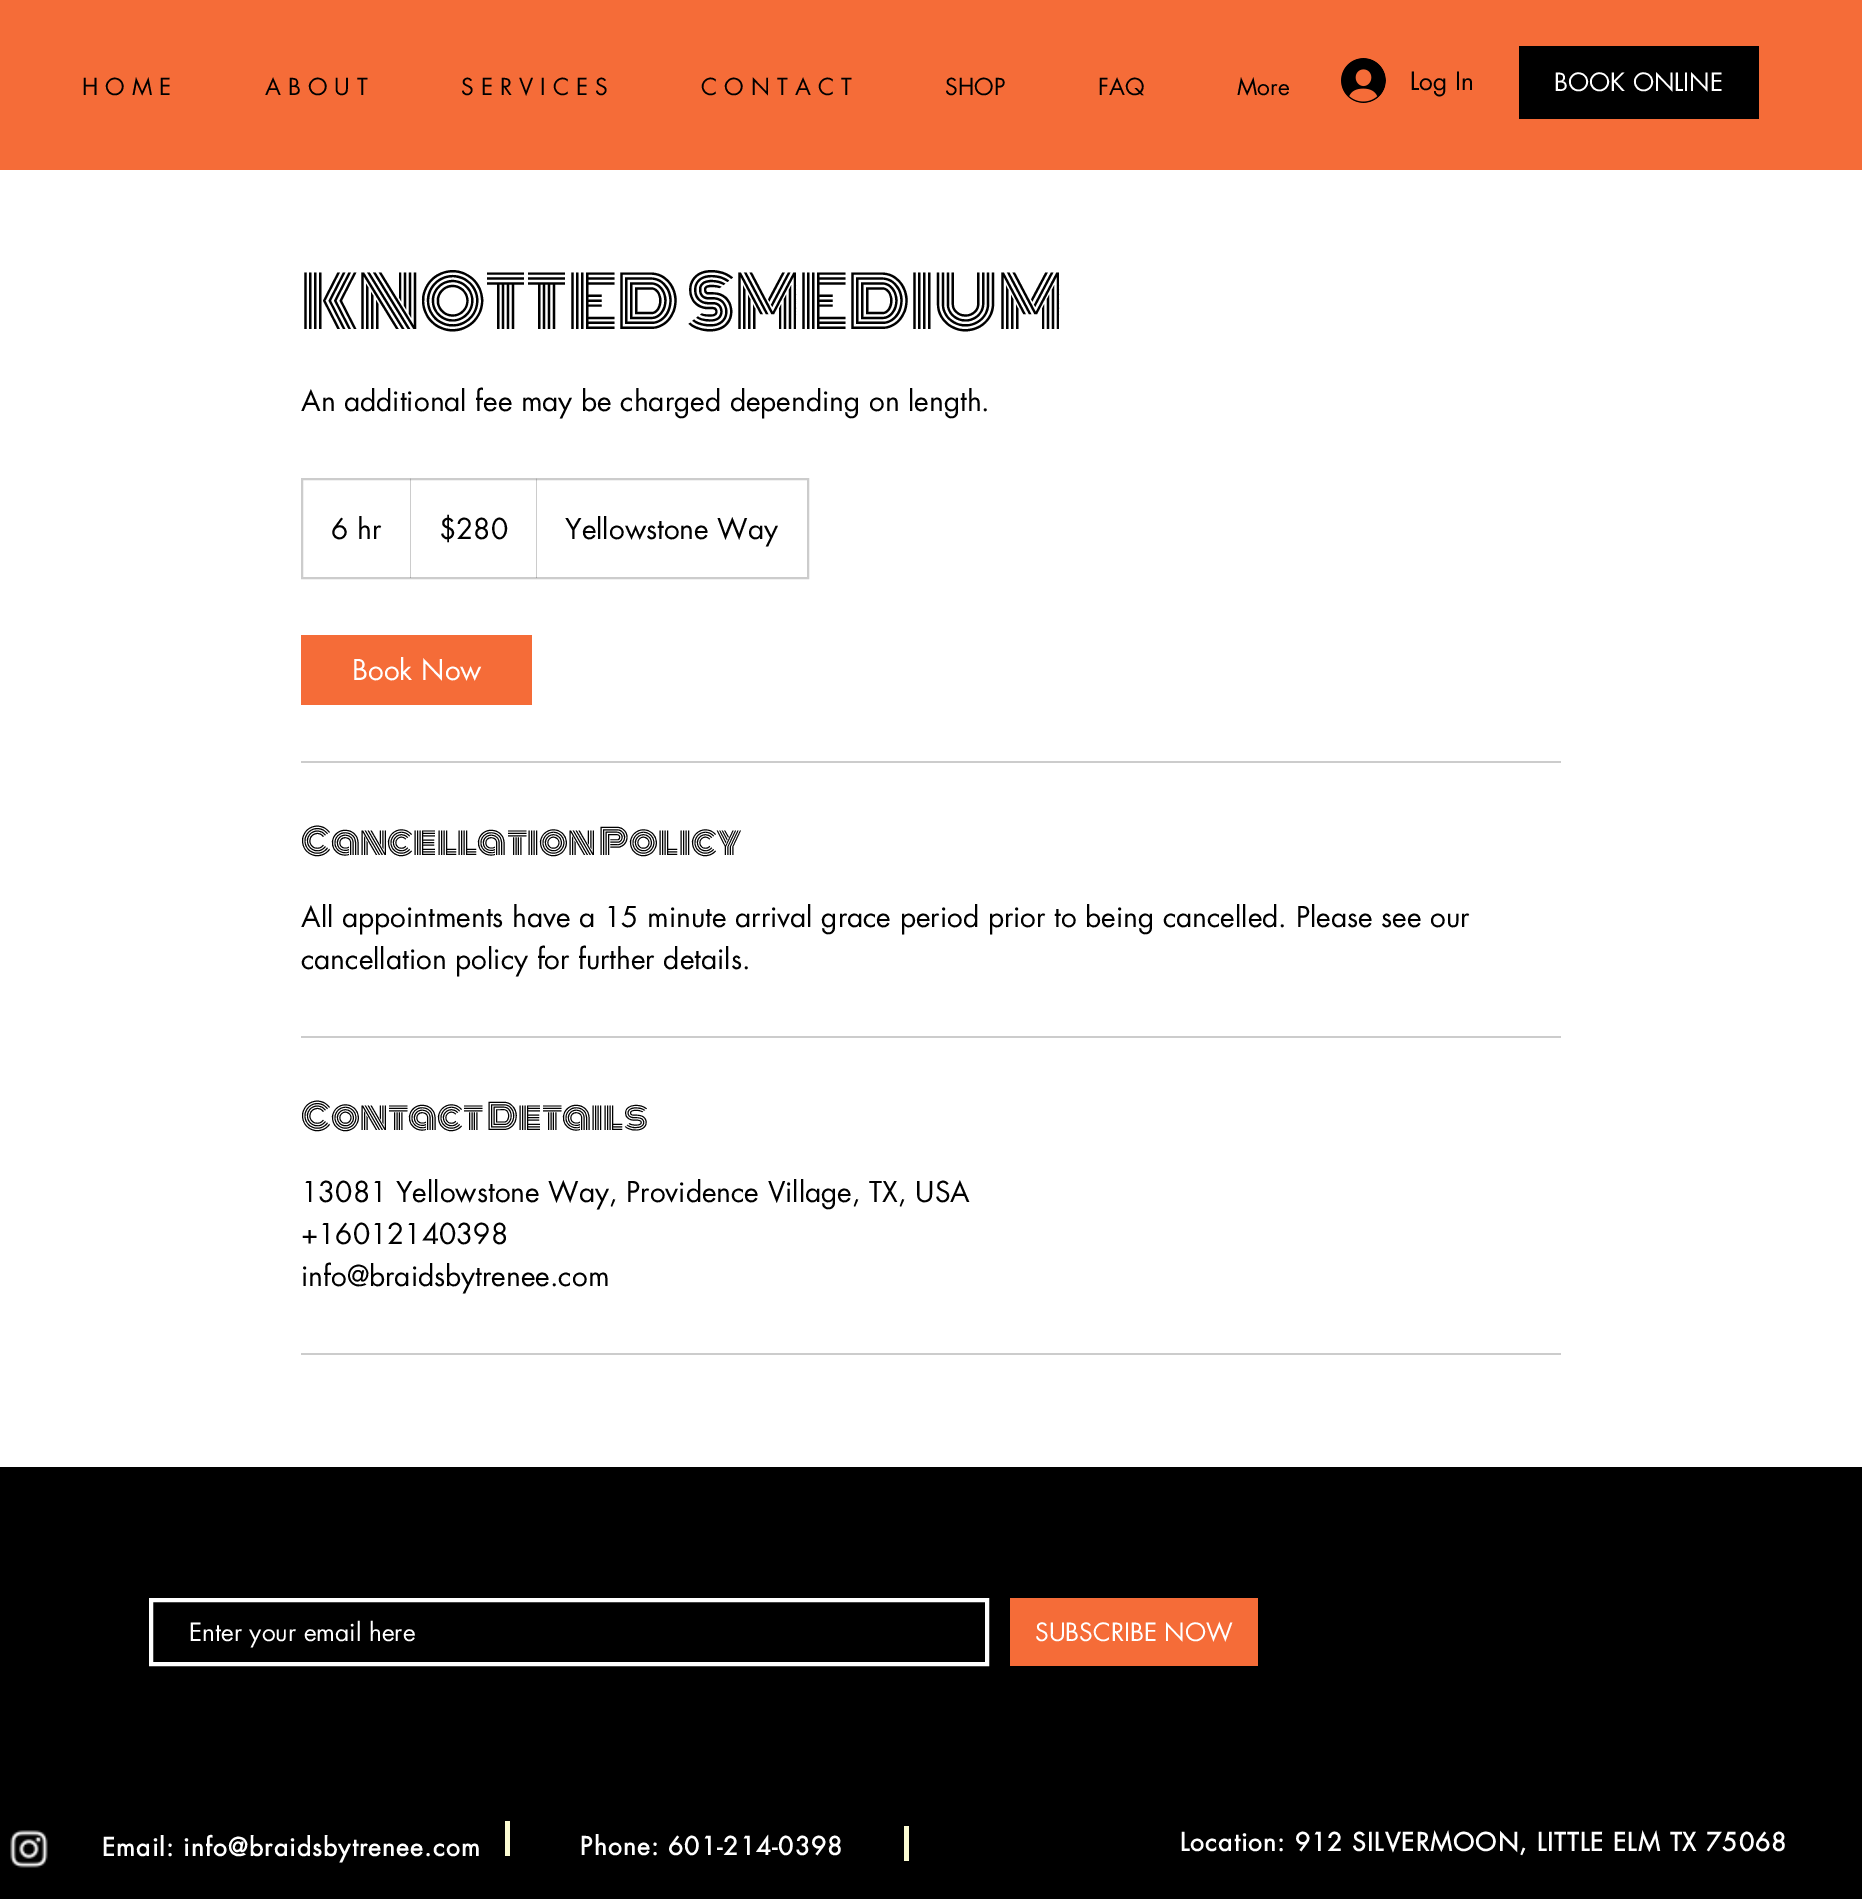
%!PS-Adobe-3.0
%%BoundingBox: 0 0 1862 1899
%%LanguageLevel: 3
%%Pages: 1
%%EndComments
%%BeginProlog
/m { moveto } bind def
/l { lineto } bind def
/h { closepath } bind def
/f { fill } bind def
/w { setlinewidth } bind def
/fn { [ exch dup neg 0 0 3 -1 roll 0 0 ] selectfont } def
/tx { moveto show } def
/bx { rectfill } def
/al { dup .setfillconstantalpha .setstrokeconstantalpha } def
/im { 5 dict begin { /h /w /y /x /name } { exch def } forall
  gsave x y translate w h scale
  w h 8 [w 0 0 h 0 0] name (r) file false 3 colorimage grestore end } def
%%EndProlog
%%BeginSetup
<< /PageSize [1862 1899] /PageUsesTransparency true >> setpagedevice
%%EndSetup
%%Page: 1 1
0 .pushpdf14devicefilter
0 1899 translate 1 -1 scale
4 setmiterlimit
1 setgray
0 0 1862 1899 bx
0.961 0.424 0.22 setrgbcolor
0 0 1862 170 bx
/futura-Regular 22.75 fn
0 setgray
(H O M E) 82 95 tx
(A B O U T) 265 95 tx
(S E R V I C E S) 461 95 tx
(C O N T A C T) 701 95 tx
(SHOP) 945 95 tx
(FAQ) 1098 95 tx
(More) 1237 95 tx
(image0.raw) 1341 58 45 45 im
/futura-Regular 24.5 fn
(Log In) 1410 90 tx
1519 46 240 73 bx
1 setgray
(BOOK ONLINE) 1554 91 tx
/Monoton-Regular 70 fn
0 setgray
(KNOTTED SMEDIUM) 301 329 tx
/futura-Regular 28 fn
(An additional fee may be charged depending on length.) 301 411 tx
0.8 setgray
2 w
302 479 506 99 rectstroke
0 setgray
(6 hr) 331 539 tx
0.2 al
410 578 m 410 478 l 411 480 l 411 578 l h f
1 al
($280) 439 539 tx
0.2 al
536 578 m 536 478 l 537 480 l 537 578 l h f
1 al
(Yellowstone Way) 565 539 tx
0.961 0.424 0.22 setrgbcolor
301 635 231 70 bx
1 setgray
(Book Now) 352 680 tx
0.8 setgray
301 761 1260 2 bx
/Monoton-Regular 35 fn
0 setgray
(Cancellation Policy) 301 855 tx
/futura-Regular 28 fn
(All appointments have a 15 minute arrival grace period prior to being cancelled. Please see our) 301 927 tx
(cancellation policy for further details.) 301 969 tx
0.8 setgray
301 1036 1260 2 bx
/Monoton-Regular 35 fn
0 setgray
(Contact Details) 301 1130 tx
/futura-Regular 28 fn
(13081 Yellowstone Way, Providence Village, TX, USA) 301 1202 tx
(+16012140398) 301 1244 tx
(info@braidsbytrenee.com) 301 1286 tx
0.8 setgray
301 1353 1260 2 bx
0 setgray
0 1467 1862 432 bx
1 setgray
4 w
151 1600 836 64 rectstroke
/futura-Regular 24.5 fn
(Enter your email here) 189 1641 tx
0.961 0.424 0.22 setrgbcolor
1010 1598 248 68 bx
1 setgray
(SUBSCRIBE NOW) 1035 1641 tx
(image1.raw) 10 1830 38 38 im
/futura-Bold 24.5 fn
102 1856 m 1.2 0 (Email: info@braidsbytrenee.com) ashow
0.984 0.984 0.824 setrgbcolor
505 1821 5 35 bx
1 setgray
580 1855 m 1.2 0 (Phone: 601-214-0398) ashow
0.984 0.984 0.824 setrgbcolor
904 1826 5 35 bx
1 setgray
1180 1851 m 1.2 0 (Location: 912 SILVERMOON, LITTLE ELM TX 75068) ashow
.poppdf14devicefilter showpage
%%EOF
